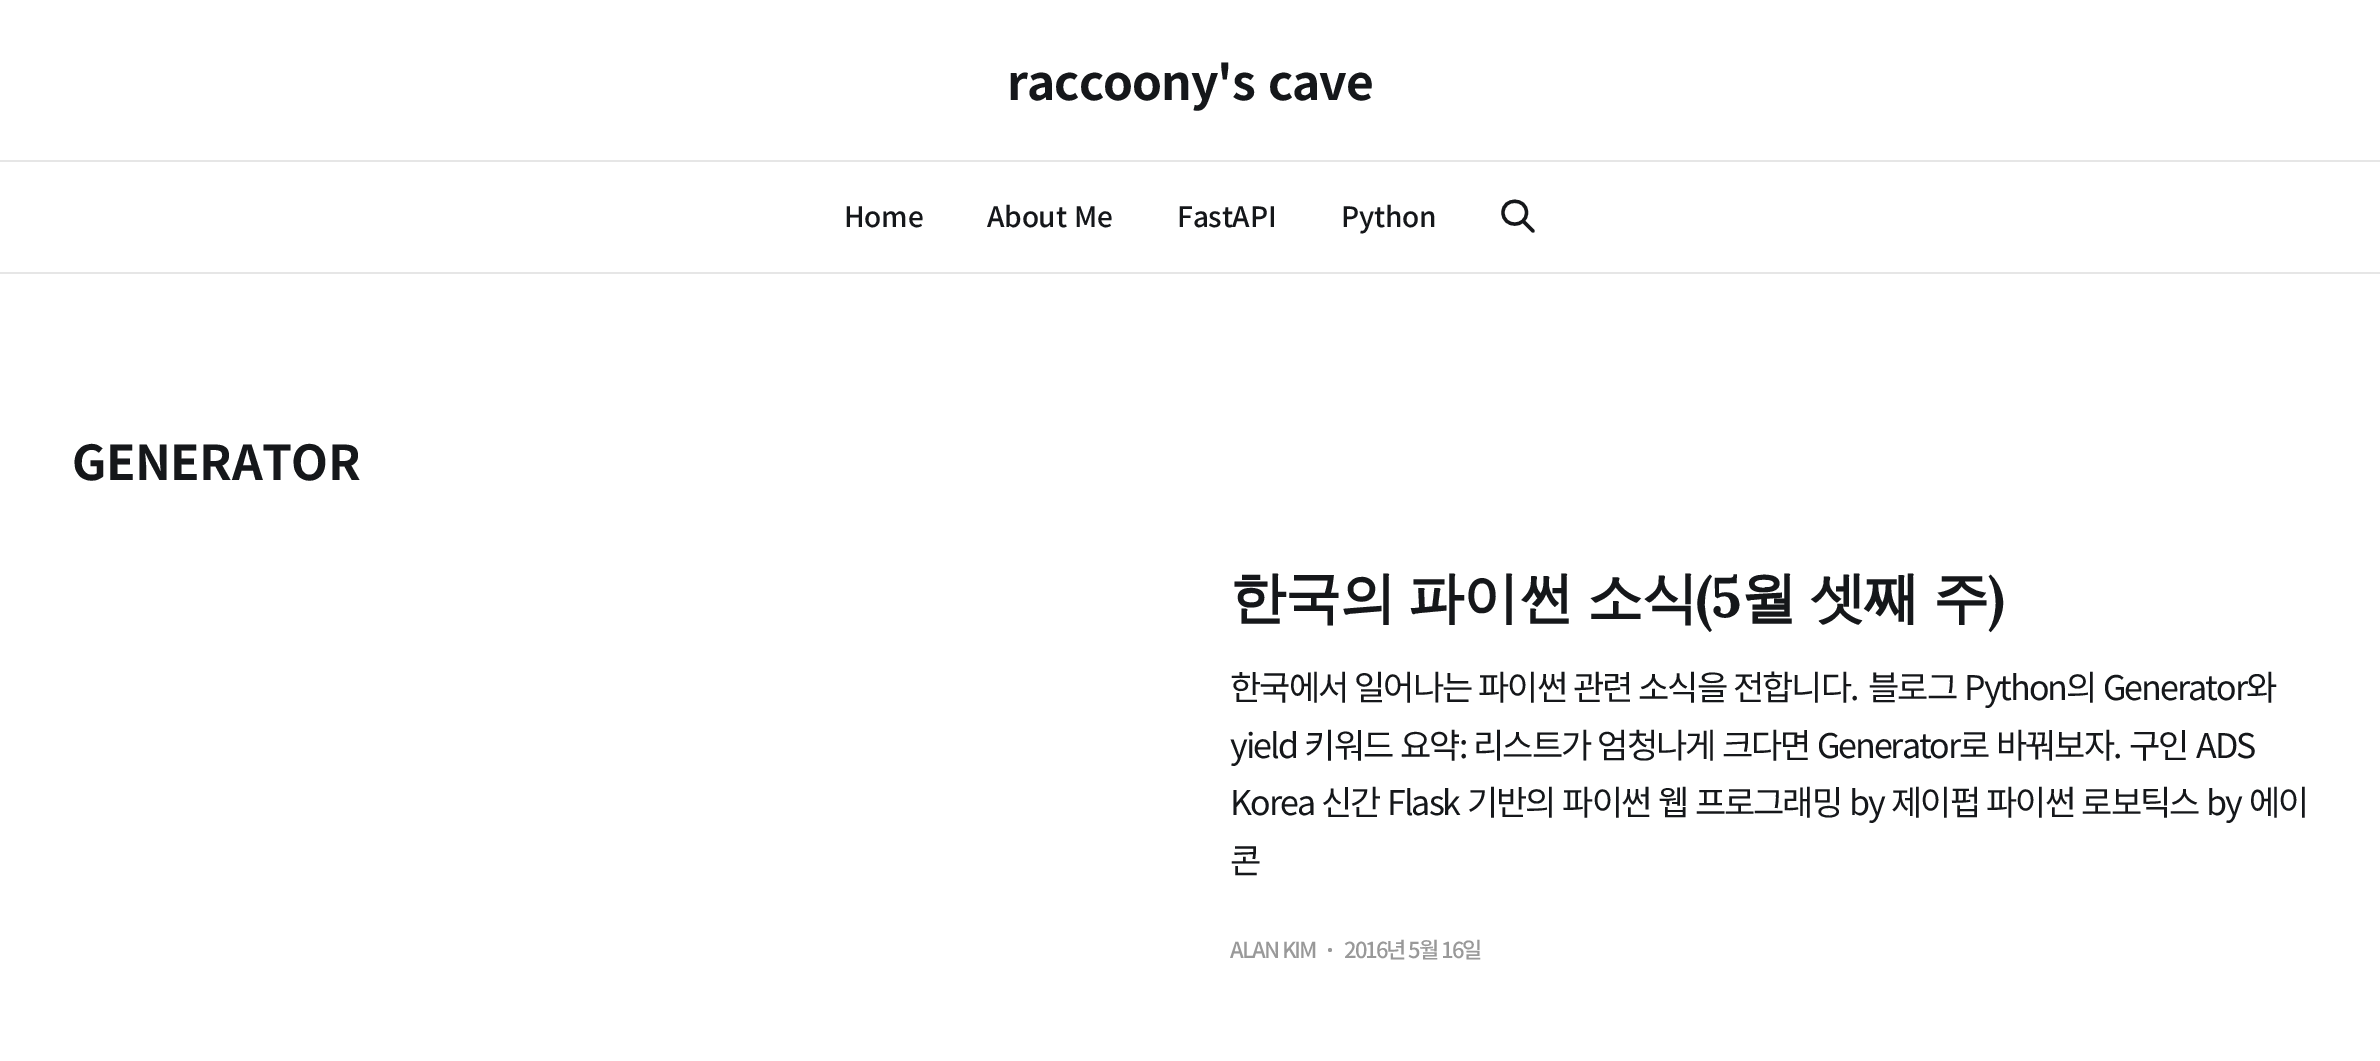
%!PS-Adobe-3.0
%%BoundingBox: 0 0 2380 1061
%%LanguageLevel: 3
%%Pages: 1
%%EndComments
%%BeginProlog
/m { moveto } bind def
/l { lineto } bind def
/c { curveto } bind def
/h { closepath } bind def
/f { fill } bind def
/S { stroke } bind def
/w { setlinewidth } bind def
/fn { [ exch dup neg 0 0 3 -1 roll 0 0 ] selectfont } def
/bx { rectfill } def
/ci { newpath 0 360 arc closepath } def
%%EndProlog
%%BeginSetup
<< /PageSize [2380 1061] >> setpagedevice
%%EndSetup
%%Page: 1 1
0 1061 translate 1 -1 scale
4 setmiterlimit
1 setgray
0 0 2380 1061 bx
/NotoSansKR-Bold 48 fn
0.082 0.09 0.102 setrgbcolor
1007 100 m 3 0 32 -1 0 (raccoony's cave) awidthshow
0.902 setgray
0 160 2380 2 bx
/NotoSansKR-Medium 28 fn
0.082 0.09 0.102 setrgbcolor
844 227 m -0.25 0 (Home) ashow
987 227 m 2 0 32 -0.25 0 (About Me) awidthshow
1177 227 m -0.25 0 (FastAPI) ashow
1341 227 m -0.25 0 (Python) ashow
3.3 w
1 setlinecap
1 setlinejoin
1533 231 m 1523 221 l 1526.5 212.5 m 1526.5 228 1503 228 1503 212.5 c 1503 197.5 1526.5 197.5 1526.5 212.5 c h S
0.902 setgray
0 272 2380 2 bx
/NotoSansKR-Bold 48 fn
0.082 0.09 0.102 setrgbcolor
72 480 m -0.5 0 (GENERATOR) ashow
/WenQuanYiZenHei-Bold 56 fn
1230 617 m -2 0 32 -1.1 0 (한국의 파이썬 소식) awidthshow
/Lora-Bold 56 fn
1696 617 m -1.1 0 (\(5) ashow
/WenQuanYiZenHei-Bold 56 fn
1741 617 m -2 0 32 -1.1 0 (월 셋째 주) awidthshow
/Lora-Bold 56 fn
1988 617 m -1.1 0 (\)) ashow
/NotoSansKR-Regular 34 fn
1230 700 m 1.25 0 32 -2 0 (한국에서 일어나는 파이썬 관련 소식을 전합니다.) awidthshow
1868 700 m -2 0 (블로그) ashow
1964 700 m 2 0 32 -2 0 (Python의 Generator와) awidthshow
1230 758 m 2 0 32 -2 0 (yield 키워드) awidthshow
1400 758 m 1.5 0 32 -2 0 (요약: 리스트가 엄청나게 크다면 Generator로 바꿔보자.) awidthshow
2129 758 m -2 0 (구인) ashow
2196 758 m -2 0 (ADS) ashow
1230 815 m -2 0 (Korea) ashow
1321 815 m -2 0 (신간) ashow
1387 815 m 2 0 32 -2 0 (Flask 기반의 파이썬 웹 프로그래밍 by 제이펍) awidthshow
1986 815 m 2 0 32 -2 0 (파이썬 로보틱스 by 에이) awidthshow
1230 873 m -2 0 (콘) ashow
/NotoSansKR-Medium 22 fn
0.6 setgray
1230 958 m 1 0 32 -2 0 (ALAN KIM) awidthshow
1330 950 2 ci f
1344 958 m 1 0 32 -2 0 (2016년 5월 16일) awidthshow
showpage
%%EOF
